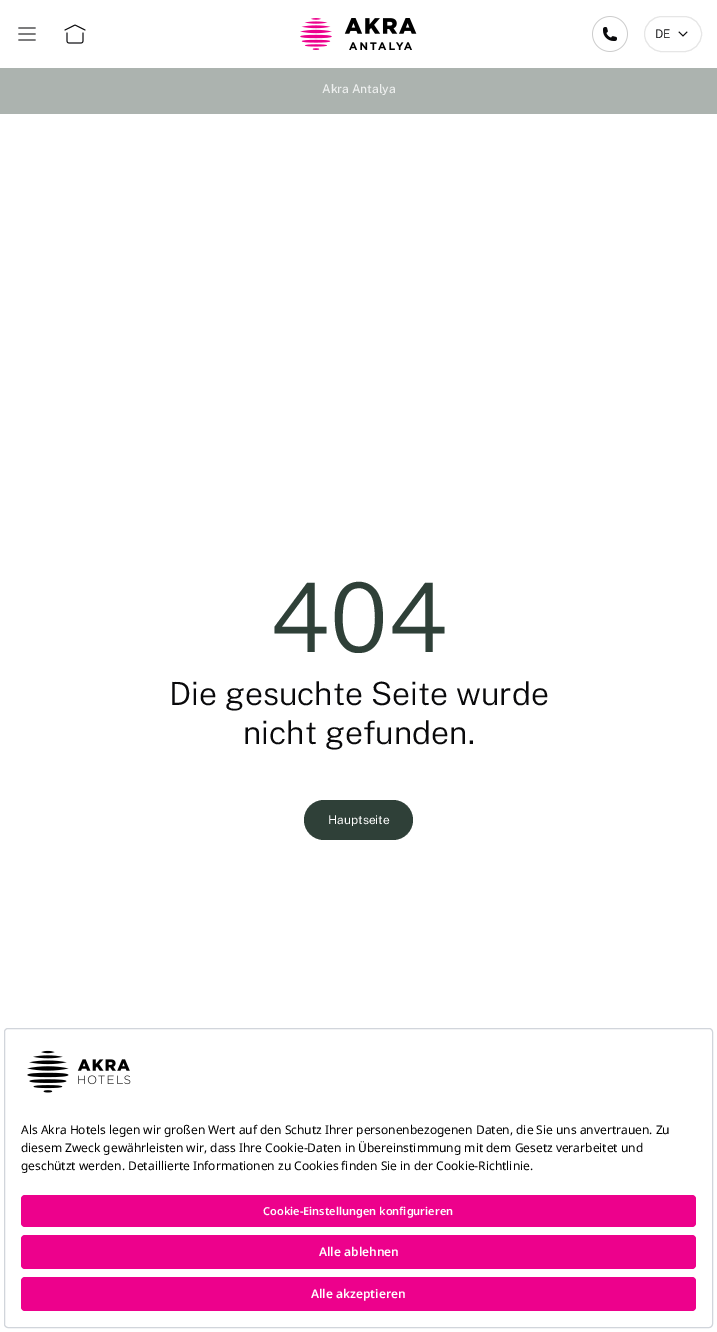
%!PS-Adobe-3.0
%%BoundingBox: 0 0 717 1332
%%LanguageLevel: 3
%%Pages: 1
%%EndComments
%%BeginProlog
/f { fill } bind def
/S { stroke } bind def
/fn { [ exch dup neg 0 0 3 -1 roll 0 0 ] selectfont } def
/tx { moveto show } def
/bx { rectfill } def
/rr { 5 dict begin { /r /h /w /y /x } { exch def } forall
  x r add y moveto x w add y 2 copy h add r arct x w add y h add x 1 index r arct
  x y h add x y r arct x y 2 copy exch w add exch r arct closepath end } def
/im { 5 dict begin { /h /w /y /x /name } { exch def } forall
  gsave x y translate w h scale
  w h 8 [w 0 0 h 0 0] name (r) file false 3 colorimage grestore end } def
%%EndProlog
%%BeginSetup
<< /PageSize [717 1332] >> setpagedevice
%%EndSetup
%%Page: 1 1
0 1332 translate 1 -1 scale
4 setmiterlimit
1 setgray
0 0 717 1332 bx
(image0.raw) 18 27 18 14 im
(image1.raw) 64 24 22 20 im
(image2.raw) 300 18 117 32 im
(image3.raw) 592 16 36 36 im
0.902 setgray
644.5 16.5 57 35 17.5 rr S
/PublicSans-Light 12 fn
0.035 0.035 0.043 setrgbcolor
(DE) 655 38 tx
(image4.raw) 678 31 10 6 im
0.675 0.702 0.686 setrgbcolor
0 68 717 46 bx
/PublicSans-Medium 12 fn
0.933 0.941 0.937 setrgbcolor
(Akra Antalya) 322 93 tx
/PublicSans-Light 96 fn
0.184 0.251 0.22 setrgbcolor
(404) 270 652 tx
/PublicSans-Light 32 fn
0.035 0.035 0.043 setrgbcolor
(Die gesuchte Seite wurde) 169 705 tx
(nicht gefunden.) 243 744 tx
0.184 0.251 0.22 setrgbcolor
304 800 109 40 20 rr f
/PublicSans-Regular 12 fn
1 setgray
(Hauptseite) 328 824 tx
0.82 0.835 0.859 setrgbcolor
4.5 1028.5 708 299 3.5 rr S
(image5.raw) 27 1050 104 43 im
/NotoSans-Regular 12 fn
0 setgray
(Als Akra Hotels legen wir großen Wert auf den Schutz Ihrer personenbezogenen Daten, die Sie uns anvertrauen. Zu) 21 1134 tx
(diesem Zweck gewährleisten wir, dass Ihre Cookie-Daten in Übereinstimmung mit dem Gesetz verarbeitet und) 21 1152 tx
(geschützt werden. Detaillierte Informationen zu Cookies finden Sie in der Cookie-Richtlinie.) 21 1170 tx
0.929 0.004 0.549 setrgbcolor
21 1195 675 32 4 rr f
/NotoSans-SemiBold 11 fn
1 setgray
(Cookie-Einstellungen konfigurieren) 263 1215 tx
0.929 0.004 0.549 setrgbcolor
21 1235 675 34 4 rr f
/NotoSans-SemiBold 12 fn
1 setgray
(Alle ablehnen) 319 1256 tx
0.929 0.004 0.549 setrgbcolor
21 1277 675 34 4 rr f
1 setgray
(Alle akzeptieren) 311 1298 tx
showpage
%%EOF
